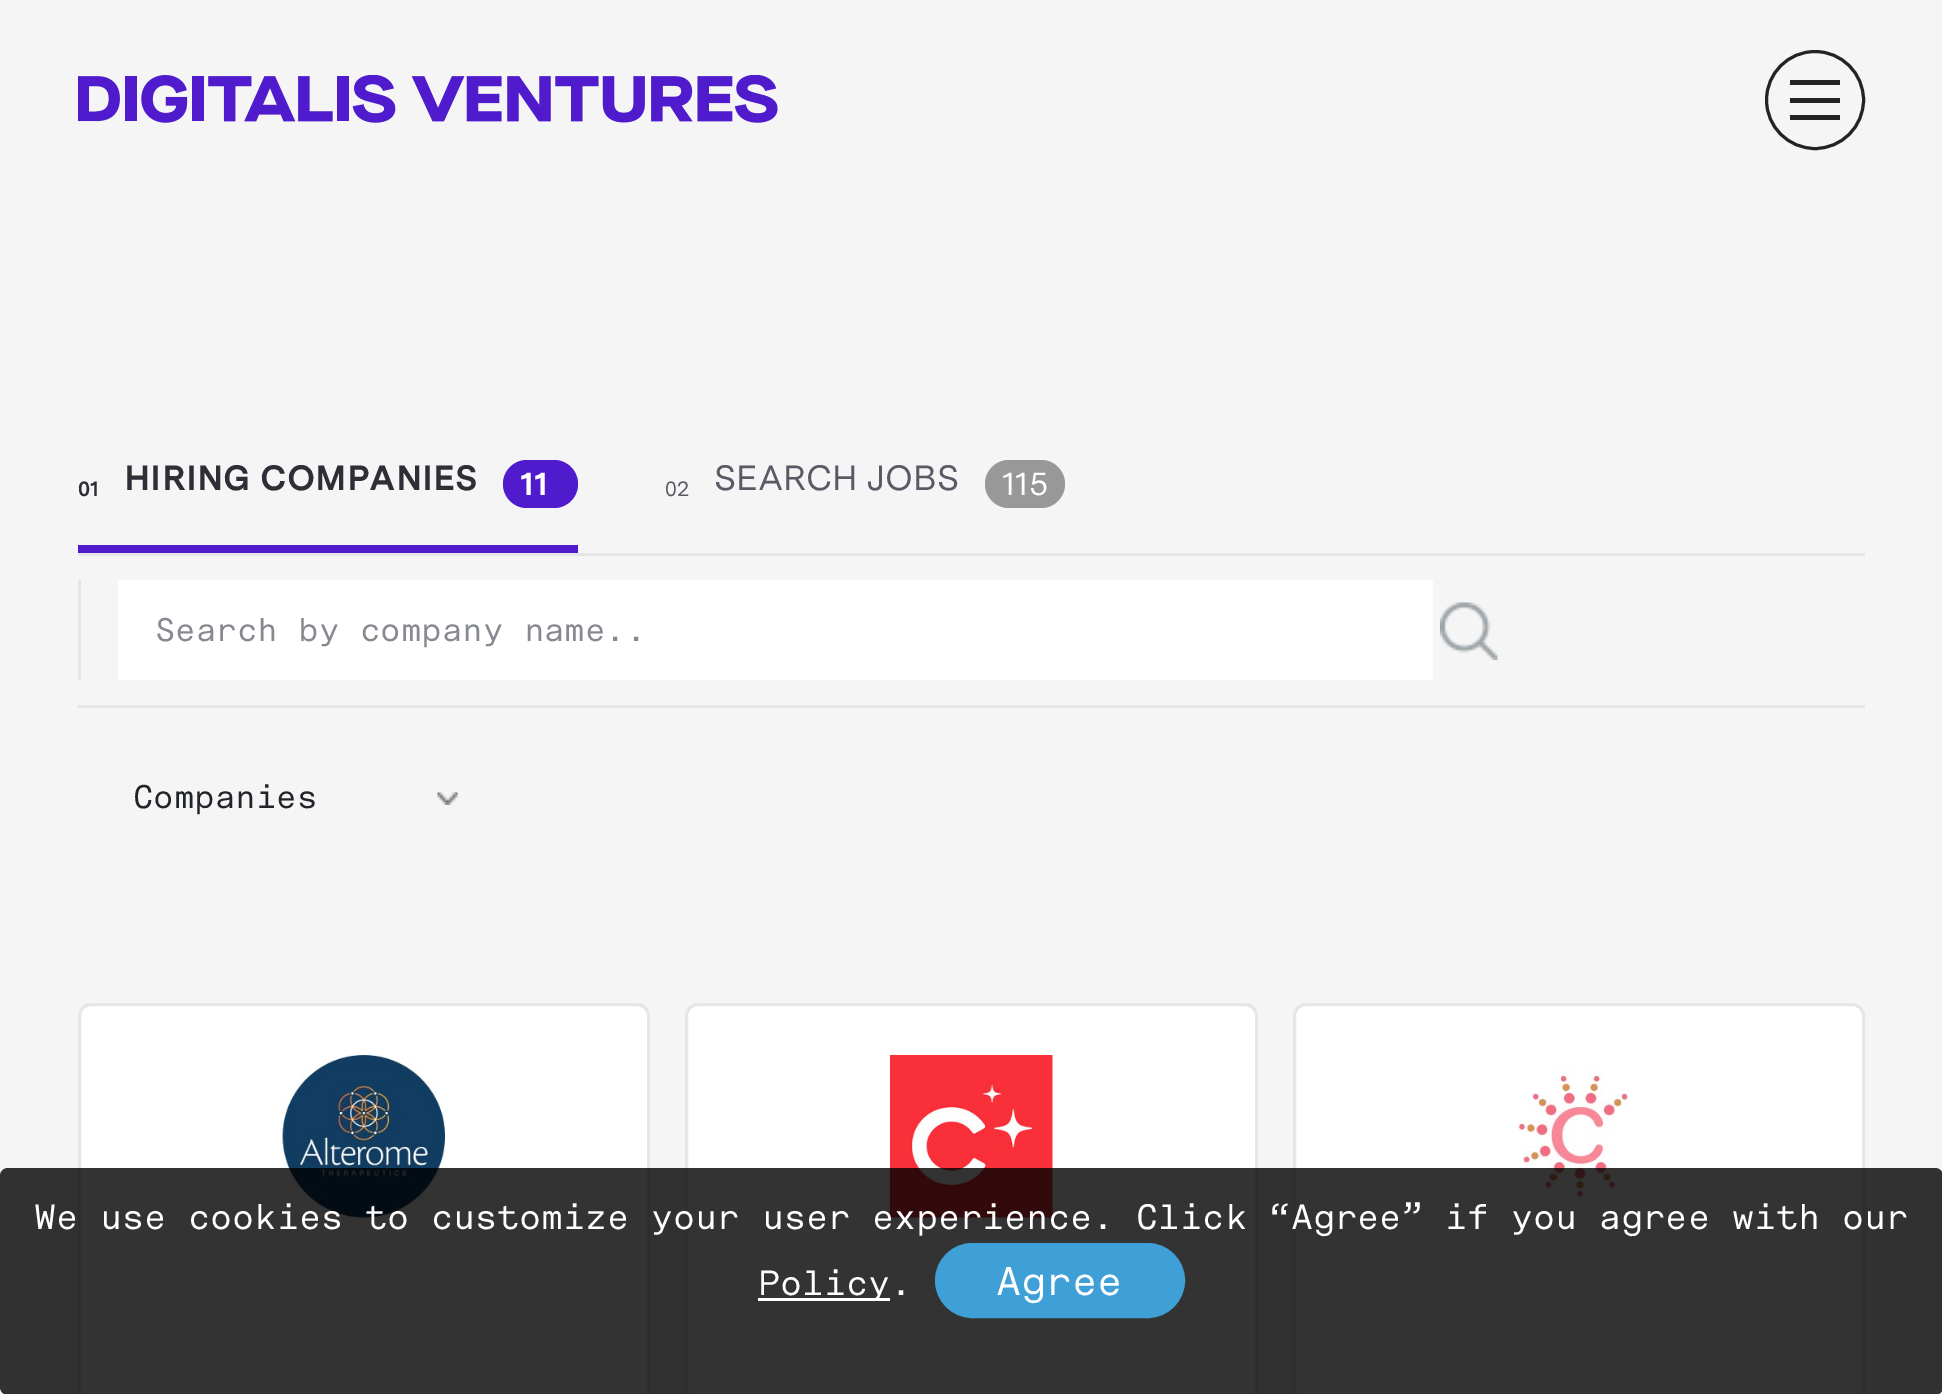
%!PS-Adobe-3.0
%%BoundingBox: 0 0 1942 1394
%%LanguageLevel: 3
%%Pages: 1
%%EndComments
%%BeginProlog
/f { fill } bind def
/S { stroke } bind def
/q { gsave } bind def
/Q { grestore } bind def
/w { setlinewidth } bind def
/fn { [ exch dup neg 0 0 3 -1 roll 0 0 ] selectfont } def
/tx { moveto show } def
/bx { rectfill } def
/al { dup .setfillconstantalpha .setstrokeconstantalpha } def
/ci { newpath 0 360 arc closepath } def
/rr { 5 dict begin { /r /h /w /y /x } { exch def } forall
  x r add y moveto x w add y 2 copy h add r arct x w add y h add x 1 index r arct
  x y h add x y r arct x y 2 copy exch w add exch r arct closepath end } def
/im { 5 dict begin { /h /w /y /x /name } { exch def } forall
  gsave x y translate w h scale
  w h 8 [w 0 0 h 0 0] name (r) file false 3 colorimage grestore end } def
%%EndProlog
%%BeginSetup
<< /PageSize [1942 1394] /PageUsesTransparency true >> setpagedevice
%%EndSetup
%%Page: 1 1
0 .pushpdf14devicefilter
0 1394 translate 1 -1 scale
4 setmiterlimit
0.961 setgray
0 0 1942 1394 bx
(image0.raw) 78 75 700 48 im
0.137 setgray
3 w
1815 100 48.5 ci S
1790 80 50 5 bx
1790 98 50 5 bx
1790 115 50 5 bx
0.898 setgray
78 553 1787 3 bx
0.31 0.106 0.8 setrgbcolor
78 545 500 8 bx
/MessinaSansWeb-Bold 21 fn
0.18 0.184 0.212 setrgbcolor
(01) 78 496 tx
/MessinaSansWeb-Bold 35 fn
(HIRING COMPANIES) 124 490 tx
0.31 0.106 0.8 setrgbcolor
503 460 75 48 24 rr f
/MessinaSansWeb-Bold 32.5 fn
1 setgray
(11) 520 495 tx
/MessinaSansWeb-Regular 21 fn
0.345 0.357 0.4 setrgbcolor
(02) 665 496 tx
/MessinaSansWeb-Regular 35 fn
(SEARCH JOBS) 714 490 tx
0.596 setgray
985 460 80 48 24 rr f
/MessinaSansWeb-Regular 32.5 fn
1 setgray
(115) 1002 495 tx
0.898 setgray
78 705 1787 3 bx
78 580 3 100 bx
1 setgray
118 580 1315 100 bx
/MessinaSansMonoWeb-Regular 32.5 fn
0.529 0.537 0.569 setrgbcolor
(Search by company name..) 155 641 tx
(image1.raw) 1440 602 58 58 im
0.129 0.145 0.161 setrgbcolor
(Companies) 133 808 tx
(image2.raw) 437 792 21 13 im
1 setgray
79.5 1004.5 569 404 11.5 rr q f Q
0.898 0.902 0.906 setrgbcolor
S
(image3.raw) 282 1055 163 163 im
1 setgray
686.5 1004.5 570 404 11.5 rr q f Q
0.898 0.902 0.906 setrgbcolor
S
(image4.raw) 890 1055 163 163 im
1 setgray
1294.5 1004.5 569 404 11.5 rr q f Q
0.898 0.902 0.906 setrgbcolor
S
(image5.raw) 1512 1068 116 130 im
0.8 al
0 setgray
0 1168 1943 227 8 rr f
/MessinaSansMonoWeb-Regular 35 fn
1 al
1 setgray
(We use cookies to customize your user experience. Click “Agree” if you agree with our) 34 1229 tx
758 1298 132 3 bx
(Policy.) 758 1295 tx
0.243 0.627 0.843 setrgbcolor
936.5 1244.5 247 72 36 rr q f Q
S
/MessinaSansMonoWeb-Regular 40 fn
1 setgray
(Agree) 996 1295 tx
.poppdf14devicefilter showpage
%%EOF
